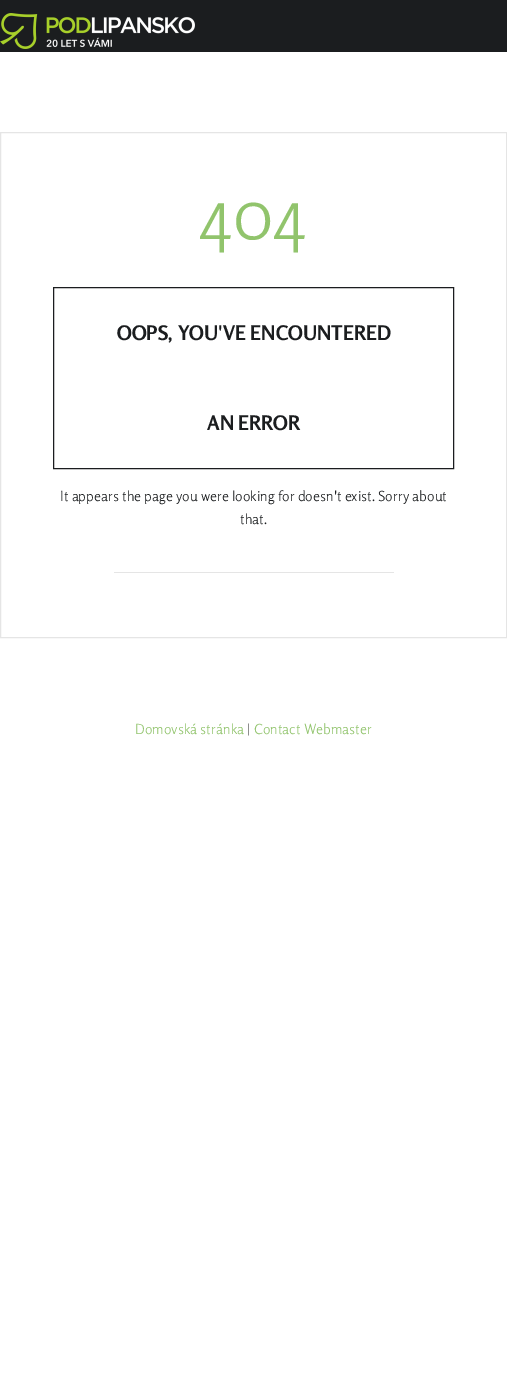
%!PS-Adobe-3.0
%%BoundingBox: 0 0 507 1378
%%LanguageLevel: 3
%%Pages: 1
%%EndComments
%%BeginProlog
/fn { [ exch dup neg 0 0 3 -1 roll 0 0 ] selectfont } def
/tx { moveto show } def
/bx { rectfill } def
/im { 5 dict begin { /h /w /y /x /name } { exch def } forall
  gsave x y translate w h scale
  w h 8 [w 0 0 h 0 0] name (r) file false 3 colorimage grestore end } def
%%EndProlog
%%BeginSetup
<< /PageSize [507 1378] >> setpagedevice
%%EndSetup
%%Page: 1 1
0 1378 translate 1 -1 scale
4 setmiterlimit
1 setgray
0 0 507 1378 bx
0.106 0.114 0.122 setrgbcolor
0 0 507 52 bx
(image0.raw) 0 13 195 36 im
0.898 setgray
0.5 132.5 506 505 rectstroke
/Rosario-Light 72 fn
0.569 0.769 0.424 setrgbcolor
(404) 201 239 tx
0.106 0.114 0.122 setrgbcolor
53.5 287.5 400 181 rectstroke
/Rosario-Bold 20 fn
(OOPS, YOU'VE ENCOUNTERED) 117 340 tx
(AN ERROR) 207 430 tx
/Rosario-Light 14 fn
(It appears the page you were looking for doesn't exist. Sorry about) 60 501 tx
(that.) 240 524 tx
0.898 setgray
114 572 280 1 bx
0.569 0.769 0.424 setrgbcolor
(Domovská stránka) 135 734 tx
0.4 setgray
(|) 247 734 tx
0.569 0.769 0.424 setrgbcolor
(Contact Webmaster) 254 734 tx
showpage
%%EOF
